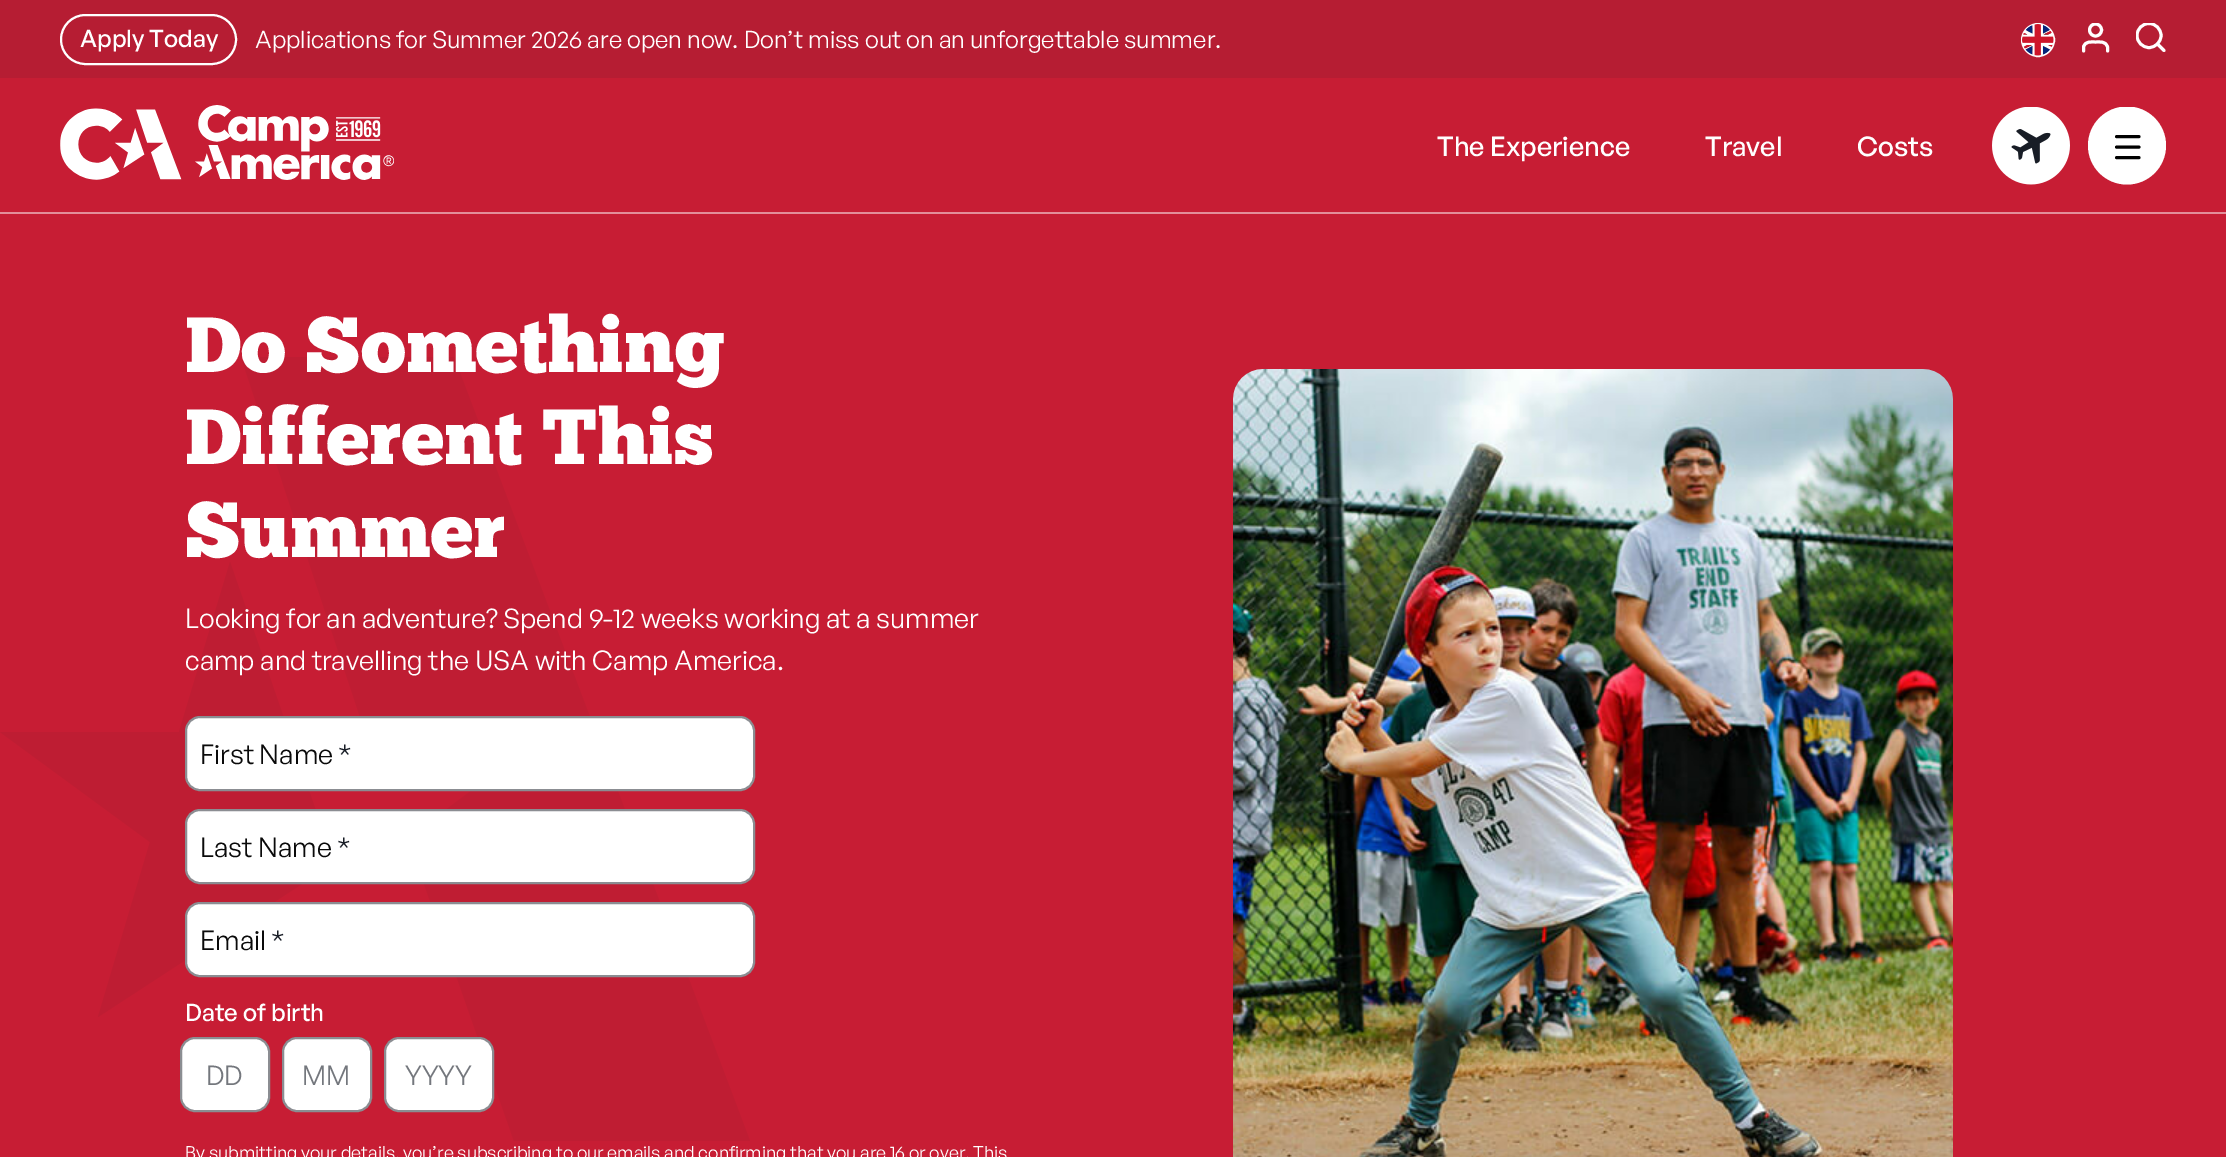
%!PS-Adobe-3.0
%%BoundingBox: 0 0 2226 1157
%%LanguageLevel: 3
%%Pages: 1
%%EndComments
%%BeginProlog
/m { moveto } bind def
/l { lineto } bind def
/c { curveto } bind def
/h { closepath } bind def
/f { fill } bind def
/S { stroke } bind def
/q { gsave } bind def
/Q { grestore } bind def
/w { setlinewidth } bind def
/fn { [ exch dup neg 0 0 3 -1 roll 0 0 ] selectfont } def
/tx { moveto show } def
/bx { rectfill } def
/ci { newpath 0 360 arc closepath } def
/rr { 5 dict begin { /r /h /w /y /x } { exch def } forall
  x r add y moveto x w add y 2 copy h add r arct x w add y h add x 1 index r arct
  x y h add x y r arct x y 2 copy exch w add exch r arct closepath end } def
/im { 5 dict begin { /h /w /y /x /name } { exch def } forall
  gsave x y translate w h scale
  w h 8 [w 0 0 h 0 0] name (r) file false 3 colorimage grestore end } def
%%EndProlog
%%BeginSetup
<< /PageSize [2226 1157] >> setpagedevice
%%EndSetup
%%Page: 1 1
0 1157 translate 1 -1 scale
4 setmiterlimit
0.78 0.114 0.204 setrgbcolor
0 0 2226 1157 bx
0.714 0.114 0.2 setrgbcolor
0 0 2226 78 bx
1 setgray
2 w
61 15 175 49 24.5 rr S
/GeneralSans-Medium 24 fn
(Apply Today) 80 47 tx
/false-Regular 24 fn
(Applications for Summer 2026 are open now. Don’t miss out on an unforgettable summer.) 255 48 tx
2038 40 16 ci S
(image0.raw) 2022 24 32 32 im
3 w
1 setlinecap
1 setlinejoin
2107.5 51 m 2107.5 47 l 2106 41 2100 42 2095.5 42 c 2091 42 2085 41 2083.5 47 c 2083.5 51 l S
q
2082 23 27 30 rectclip
0 setlinecap
0 setlinejoin
2095.5 30 6 ci S
Q
q
2136 23 30 30 rectclip
2.9 w
0 setlinecap
0 setlinejoin
2149 35.5 12 ci S
Q
2.9 w
2164 50.5 m 2157.5 44 l S
0.89 0.557 0.604 setrgbcolor
0 212 2226 2 bx
(image1.raw) 60 105 334 75 im
/GeneralSans-Medium 27 fn
1 setgray
(The Experience) 1437 156 tx
(Travel) 1705 156 tx
(Costs) 1857 156 tx
(image2.raw) 1992 107 78 78 im
q
2088 107 78 78 rectclip
2127 145.5 39 ci f
Q
0 setgray
3 w
2116.5 147 m 2139 147 l 2116.5 136.5 m 2139 136.5 l 2116.5 157.5 m 2139 157.5 l S
0.749 0.114 0.2 setrgbcolor
241 357 m 365 732 l 550 732 l 408 838 l 514 1141 l 750 1141 l 454 357 l h f
/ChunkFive-Regular 78 fn
1 setgray
(Do Something) 185 372 tx
(Different This) 185 464 tx
(Summer) 185 557 tx
0.745 0.114 0.2 setrgbcolor
230 562 m 334 863 l 98 1017 l 150 842 l 0 732 l 179 732 l h f
/false-Regular 27 fn
1 setgray
(Looking for an adventure? Spend 9-12 weeks working at a summer) 185 628 tx
(camp and travelling the USA with Camp America.) 185 670 tx
186 717 568 73 14 rr q f Q
0.545 0.553 0.573 setrgbcolor
2 w
0 setlinecap
0 setlinejoin
S
0.039 setgray
(First Name) 200 764 tx
0.094 0.114 0.149 setrgbcolor
(*) 338 764 tx
1 setgray
186 810 568 73 14 rr q f Q
0.545 0.553 0.573 setrgbcolor
S
0.039 setgray
(Last Name) 200 857 tx
0.094 0.114 0.149 setrgbcolor
(*) 337 857 tx
1 setgray
186 903 568 73 14 rr q f Q
0.545 0.553 0.573 setrgbcolor
S
0.039 setgray
(Email) 200 950 tx
0.094 0.114 0.149 setrgbcolor
(*) 271 950 tx
/GeneralSans-Medium 24 fn
1 setgray
(Date of birth) 185 1021 tx
181 1038 88 73 14 rr q f Q
0.545 0.553 0.573 setrgbcolor
S
/false-Regular 27 fn
0.455 0.467 0.49 setrgbcolor
(DD) 206 1085 tx
1 setgray
283 1038 88 73 14 rr q f Q
0.545 0.553 0.573 setrgbcolor
S
0.455 0.467 0.49 setrgbcolor
(MM) 302 1085 tx
1 setgray
385 1038 108 73 14 rr q f Q
0.545 0.553 0.573 setrgbcolor
S
0.455 0.467 0.49 setrgbcolor
(YYYY) 405 1085 tx
/false-Regular 18 fn
1 setgray
(By submitting your details, you’re subscribing to our emails and confirming that you are 16 or over. This) 185 1159 tx
(image3.raw) 1233 369 720 788 im
showpage
%%EOF
